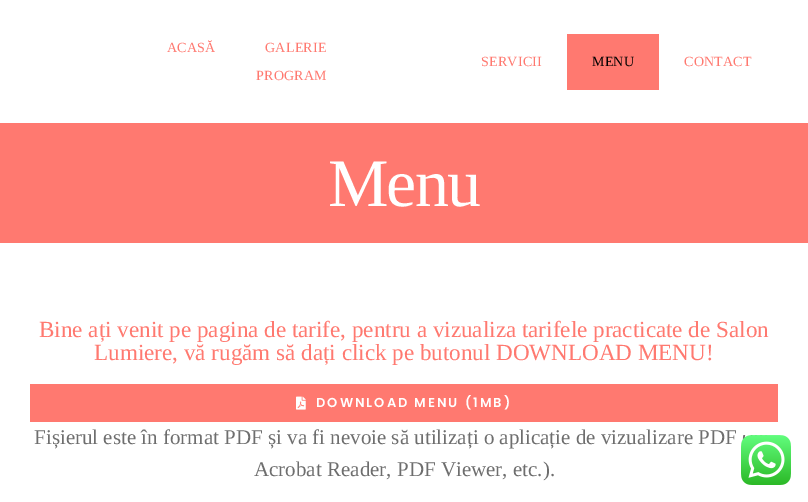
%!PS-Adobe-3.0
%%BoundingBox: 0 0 808 502
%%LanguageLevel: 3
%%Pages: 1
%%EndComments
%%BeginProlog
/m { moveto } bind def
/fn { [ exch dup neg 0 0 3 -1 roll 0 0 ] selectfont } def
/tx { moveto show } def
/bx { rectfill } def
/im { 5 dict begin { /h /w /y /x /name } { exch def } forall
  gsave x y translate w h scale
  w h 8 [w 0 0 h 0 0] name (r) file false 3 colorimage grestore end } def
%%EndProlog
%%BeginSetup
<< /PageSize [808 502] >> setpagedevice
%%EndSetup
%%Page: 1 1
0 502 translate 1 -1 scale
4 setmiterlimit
1 setgray
0 0 808 502 bx
/LiberationSerif-Regular 14 fn
1 0.475 0.439 setrgbcolor
167 52 m 0.25 0 (ACASĂ) ashow
265 52 m 0.25 0 (GALERIE) ashow
256 80 m 0.25 0 (PROGRAM) ashow
481 66 m 0.25 0 (SERVICII) ashow
567 34 92 56 bx
0 setgray
592 66 m 0.25 0 (MENU) ashow
1 0.475 0.439 setrgbcolor
684 66 m 0.25 0 (CONTACT) ashow
0 123 808 120 bx
/LiberationSerif-Regular 68 fn
1 setgray
328 206 m -2 0 (Menu) ashow
/LiberationSerif-Regular 23.1 fn
1 0.475 0.439 setrgbcolor
(Bine ați venit pe pagina de tarife, pentru a vizualiza tarifele practicate de Salon) 39 337 tx
(Lumiere, vă rugăm să dați click pe butonul DOWNLOAD MENU!) 94 360 tx
30 384 748 38 bx
(image0.raw) 296 396 10 14 im
/Poppins-SemiBold 13 fn
1 setgray
316 407 m 2 0 (DOWNLOAD MENU \(1MB\)) ashow
/LiberationSerif-Regular 21 fn
0.431 setgray
(Fișierul este în format PDF și va fi nevoie să utilizați o aplicație de vizualizare PDF) 34 444 tx
(Acrobat Reader, PDF Viewer, etc.\).) 254 476 tx
(image1.raw) 741 435 50 50 im
showpage
%%EOF
